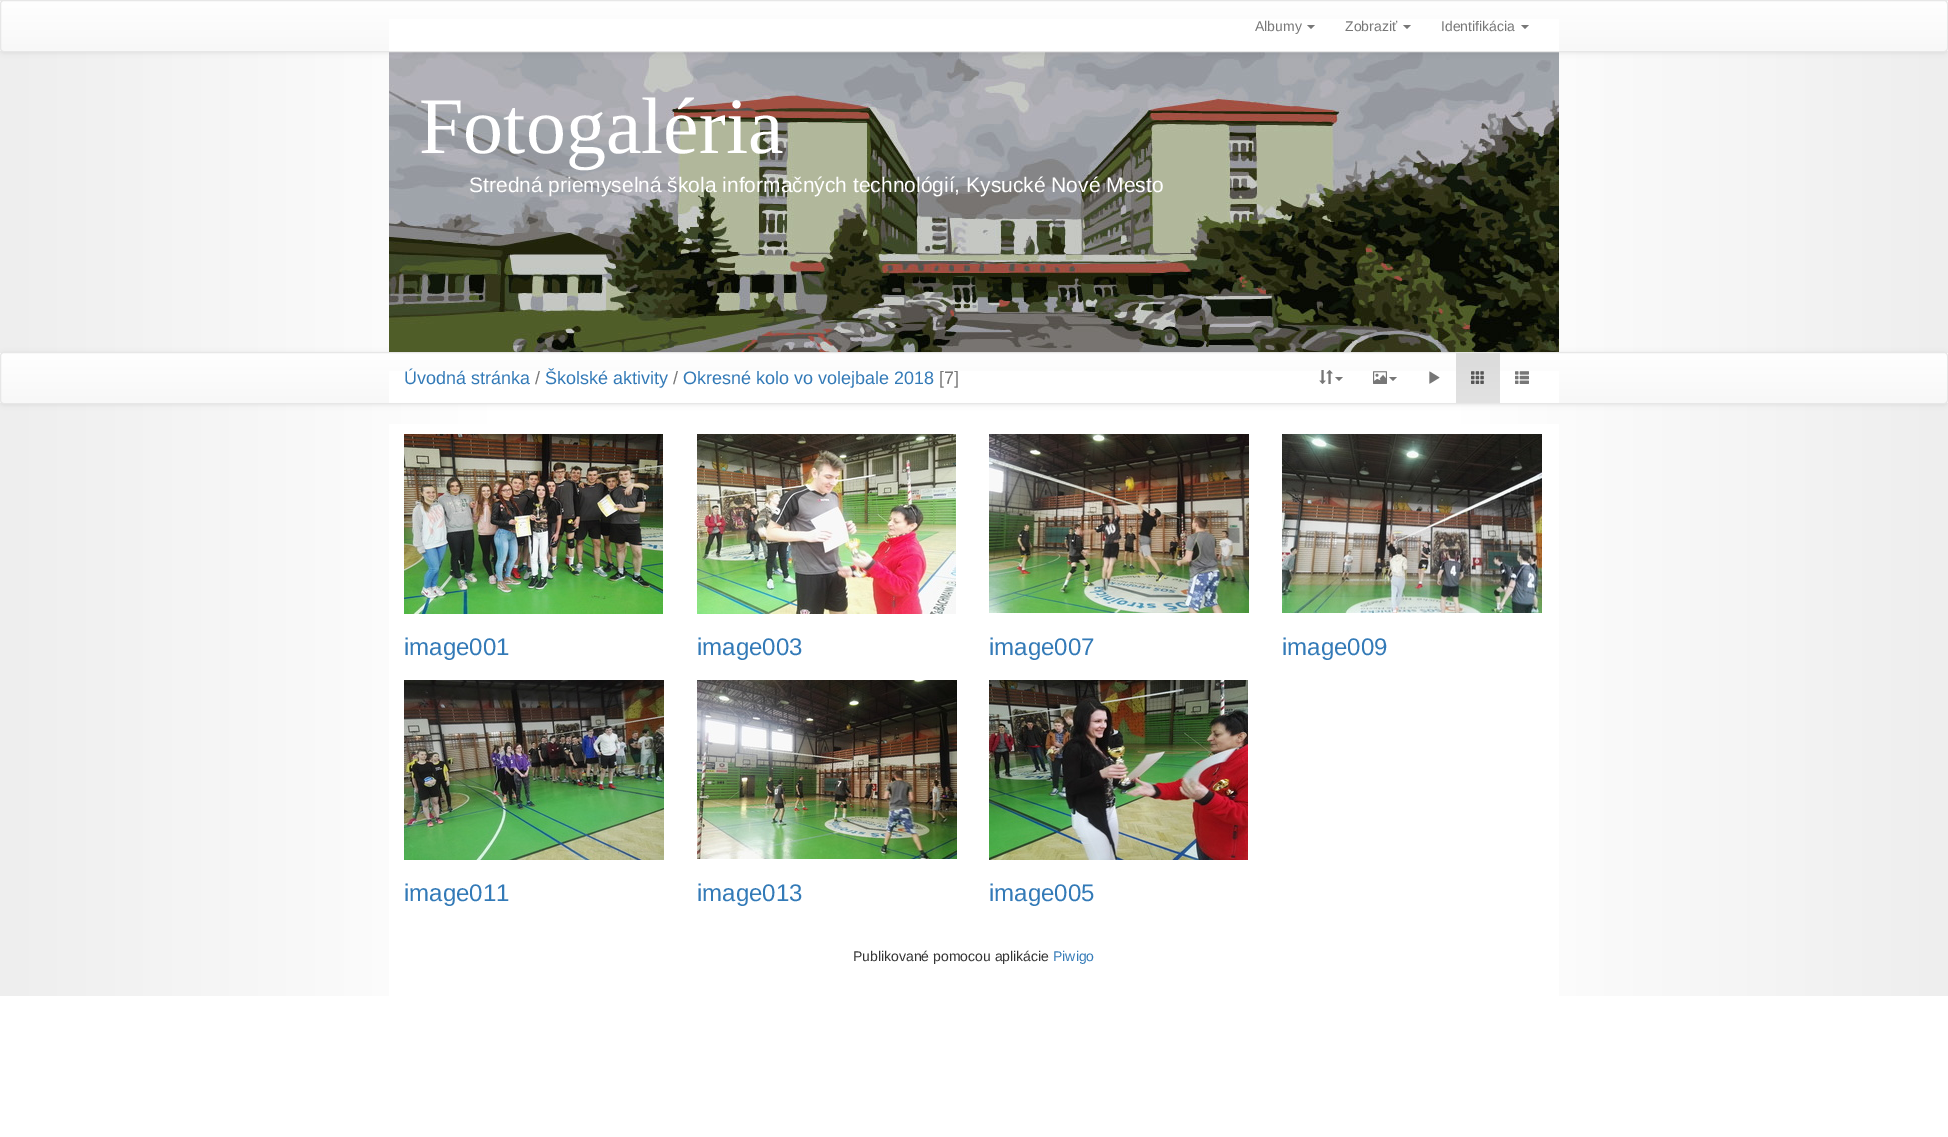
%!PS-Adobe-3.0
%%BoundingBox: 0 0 1948 1137
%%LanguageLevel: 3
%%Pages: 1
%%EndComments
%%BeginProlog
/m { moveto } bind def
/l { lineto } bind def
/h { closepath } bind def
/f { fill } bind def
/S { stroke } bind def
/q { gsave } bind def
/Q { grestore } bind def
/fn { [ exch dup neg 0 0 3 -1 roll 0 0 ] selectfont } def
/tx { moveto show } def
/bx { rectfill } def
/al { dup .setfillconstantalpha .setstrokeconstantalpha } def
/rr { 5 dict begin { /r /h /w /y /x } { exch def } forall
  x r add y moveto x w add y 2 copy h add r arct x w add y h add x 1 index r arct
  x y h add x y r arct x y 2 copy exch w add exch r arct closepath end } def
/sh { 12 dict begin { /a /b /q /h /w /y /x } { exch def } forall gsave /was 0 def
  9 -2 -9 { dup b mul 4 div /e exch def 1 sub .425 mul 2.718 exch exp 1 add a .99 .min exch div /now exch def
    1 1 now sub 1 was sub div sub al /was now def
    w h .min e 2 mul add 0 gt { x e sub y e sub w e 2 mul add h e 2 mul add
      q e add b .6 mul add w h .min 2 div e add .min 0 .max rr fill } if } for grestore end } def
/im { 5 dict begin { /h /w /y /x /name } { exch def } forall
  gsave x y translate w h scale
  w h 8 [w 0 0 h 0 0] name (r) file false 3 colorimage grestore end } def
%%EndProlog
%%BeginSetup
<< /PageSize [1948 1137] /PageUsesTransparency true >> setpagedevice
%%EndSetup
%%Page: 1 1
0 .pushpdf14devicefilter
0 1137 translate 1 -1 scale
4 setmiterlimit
1 setgray
0 0 1948 1137 bx
q 0 0 m 1948 0 l 1948 996 l 0 996 l h clip newpath
<< /ShadingType 2 /ColorSpace /DeviceRGB /Coords [1948 498 0 498] /Extend [true true] /Function << /FunctionType 3 /Domain [0 1] /Functions [<< /FunctionType 2 /Domain [0 1] /C0 [0.933 0.933 0.933] /C1 [1 1 1] /N 1 >> << /FunctionType 2 /Domain [0 1] /C0 [1 1 1] /C1 [1 1 1] /N 1 >> << /FunctionType 2 /Domain [0 1] /C0 [1 1 1] /C1 [0.933 0.933 0.933] /N 1 >>] /Bounds [0.25 0.75] /Encode [0 1 0 1 0 1] >> >> shfill Q
(image0.raw) 389 52 1170 300 im
0 setgray
0 1 1948 52 4 2.5 0.07 sh
q
0 0 1948 52 4 rr clip newpath
q 0 1 m 1948 1 l 1948 51 l 0 51 l h clip newpath
<< /ShadingType 2 /ColorSpace /DeviceRGB /Coords [974 1 974 51] /Extend [true true] /Function << /FunctionType 2 /Domain [0 1] /C0 [1 1 1] /C1 [0.973 0.973 0.973] /N 1 >> >> shfill Q
Q
0.906 setgray
0.5 0.5 1947 51 3.5 rr S
1 setgray
389 19 1170 32 bx
/LiberationSans-Regular 14 fn
0.467 setgray
(Albumy) 1255 31 tx
1307 25 m 1315 25 l 1311 29 l h f
(Zobraziť) 1345 31 tx
1403 25 m 1411 25 l 1407 29 l h f
(Identifikácia) 1441 31 tx
1521 25 m 1529 25 l 1525 29 l h f
/LiberationSerif-Regular 80 fn
1 setgray
(Fotogaléria) 419 153 tx
/LiberationSans-Regular 21 fn
(Stredná priemyselná škola informačných technológií, Kysucké Nové Mesto) 469 192 tx
0 setgray
0 353 1948 52 4 2.5 0.07 sh
q
0 352 1948 52 4 rr clip newpath
q 0 353 m 1948 353 l 1948 403 l 0 403 l h clip newpath
<< /ShadingType 2 /ColorSpace /DeviceRGB /Coords [974 353 974 403] /Extend [true true] /Function << /FunctionType 2 /Domain [0 1] /C0 [1 1 1] /C1 [0.973 0.973 0.973] /N 1 >> >> shfill Q
Q
0.906 setgray
0.5 352.5 1947 51 3.5 rr S
1 setgray
389 371 1170 32 bx
/LiberationSans-Regular 18 fn
0.2 0.478 0.718 setrgbcolor
(Úvodná stránka) 404 384 tx
0.467 setgray
(/) 535 384 tx
0.2 0.478 0.718 setrgbcolor
(Školské aktivity) 545 384 tx
0.467 setgray
(/) 673 384 tx
0.2 0.478 0.718 setrgbcolor
(Okresné kolo vo volejbale 2018) 683 384 tx
0.467 setgray
([7]) 939 384 tx
(image1.raw) 1319 370 14 14 im
1335 377 m 1343 377 l 1339 381 l h f
(image2.raw) 1373 371 14 13 im
1389 377 m 1397 377 l 1393 381 l h f
(image3.raw) 1429 371 11 13 im
q 1456 353 m 1500 353 l 1500 403 l 1456 403 l h clip newpath
<< /ShadingType 2 /ColorSpace /DeviceRGB /Coords [1478 353 1478 403] /Extend [true true] /Function << /FunctionType 2 /Domain [0 1] /C0 [0.859 0.859 0.859] /C1 [0.886 0.886 0.886] /N 1 >> >> shfill Q
(image4.raw) 1471 371 13 13 im
(image5.raw) 1515 371 14 13 im
1 setgray
389 424 1170 572 bx
(image6.raw) 404 434 259 180 im
/LiberationSans-Regular 24 fn
0.2 0.478 0.718 setrgbcolor
(image001) 404 655 tx
(image7.raw) 697 434 259 180 im
(image003) 697 655 tx
(image8.raw) 989 434 260 179 im
(image007) 989 655 tx
(image9.raw) 1282 434 260 179 im
(image009) 1282 655 tx
(image10.raw) 404 680 260 180 im
(image011) 404 901 tx
(image11.raw) 697 680 260 179 im
(image013) 697 901 tx
(image12.raw) 989 680 259 180 im
(image005) 989 901 tx
/LiberationSans-Regular 14 fn
0.2 setgray
(Publikované pomocou aplikácie) 853 961 tx
0.2 0.478 0.718 setrgbcolor
(Piwigo) 1053 961 tx
.poppdf14devicefilter showpage
%%EOF
